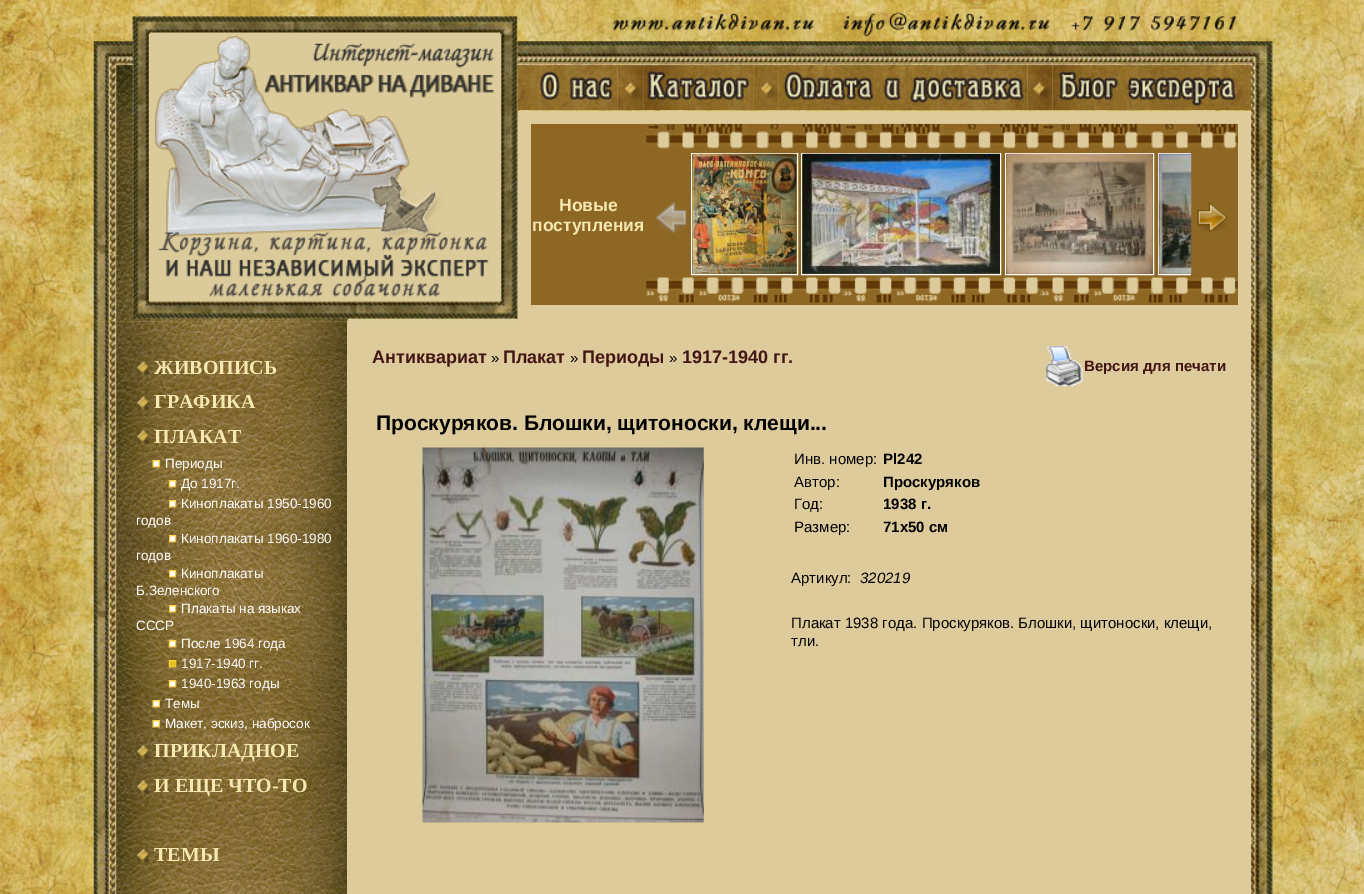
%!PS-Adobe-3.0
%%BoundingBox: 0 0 1364 894
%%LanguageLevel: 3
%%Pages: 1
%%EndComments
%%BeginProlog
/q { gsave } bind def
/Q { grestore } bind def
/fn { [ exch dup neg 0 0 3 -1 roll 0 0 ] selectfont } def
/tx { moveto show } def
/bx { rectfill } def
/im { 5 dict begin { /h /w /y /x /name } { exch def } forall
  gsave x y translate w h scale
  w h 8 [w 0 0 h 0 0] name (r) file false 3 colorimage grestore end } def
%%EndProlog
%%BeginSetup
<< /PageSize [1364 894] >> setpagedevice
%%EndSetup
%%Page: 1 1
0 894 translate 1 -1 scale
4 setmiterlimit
1 setgray
0 0 1364 894 bx
(image0.raw) 0 0 1364 894 im
0.867 0.796 0.608 setrgbcolor
517 111 735 210 bx
(image18.raw) 93 321 24 573 im
(image19.raw) 116 321 231 573 im
347 321 905 573 bx
(image1.raw) 93 0 425 322 im
(image2.raw) 517 0 756 63 im
(image3.raw) 517 62 101 48 im
(image4.raw) 617 62 27 48 im
(image5.raw) 643 62 111 48 im
(image6.raw) 753 62 26 48 im
(image7.raw) 778 62 250 48 im
(image8.raw) 1027 62 26 48 im
(image9.raw) 1052 62 200 48 im
(image39.raw) 1251 321 22 573 im
(image10.raw) 1251 62 22 260 im
0.557 0.404 0.141 setrgbcolor
531 124 707 181 bx
/LiberationSans-Bold 17.5 fn
0.961 0.91 0.694 setrgbcolor
(Новые) 559 211 tx
(поступления) 532 231 tx
(image11.raw) 646 123 592 180 im
(image12.raw) 656 202 31 31 im
1 setgray
691.5 153.5 106 121 rectstroke
(image13.raw) 692 153 105 121 im
801.5 153.5 199 121 rectstroke
(image14.raw) 802 153 198 121 im
1005.5 153.5 148 121 rectstroke
(image15.raw) 1006 153 147 121 im
q
691 153 500 125 rectclip
1158.5 153.5 180 121 rectstroke
Q
(image16.raw) 1158 153 34 121 im
(image17.raw) 1197 202 31 31 im
(image20.raw) 136 361 13 14 im
/LiberationSerif-Bold 20 fn
0.961 0.91 0.694 setrgbcolor
(ЖИВОПИСЬ) 154 374 tx
(image21.raw) 136 396 13 14 im
(ГРАФИКА) 154 408 tx
(image22.raw) 136 430 13 14 im
(ПЛАКАТ) 154 443 tx
(image23.raw) 152 460 8 8 im
/LiberationSans-Regular 13.5 fn
1 setgray
(Периоды) 165 468 tx
(image24.raw) 168 480 9 8 im
(До 1917г.) 181 488 tx
(image25.raw) 169 500 8 8 im
(Киноплакаты 1950-1960) 181 508 tx
(годов) 136 525 tx
(image26.raw) 169 535 8 8 im
(Киноплакаты 1960-1980) 181 543 tx
(годов) 136 560 tx
(image27.raw) 169 570 8 8 im
(Киноплакаты) 181 578 tx
(Б.Зеленского) 136 595 tx
(image28.raw) 169 605 8 8 im
(Плакаты на языках) 181 613 tx
(СССР) 136 630 tx
(image29.raw) 168 640 9 8 im
(После 1964 года) 181 648 tx
(image30.raw) 168 660 9 8 im
(1917-1940 гг.) 181 668 tx
(image31.raw) 168 680 9 8 im
(1940-1963 годы) 181 688 tx
(image32.raw) 152 700 8 8 im
(Темы) 165 708 tx
(image33.raw) 152 720 8 8 im
(Макет, эскиз, набросок) 165 728 tx
(image34.raw) 136 745 13 14 im
/LiberationSerif-Bold 20 fn
0.961 0.91 0.694 setrgbcolor
(ПРИКЛАДНОЕ) 154 757 tx
(image35.raw) 136 780 13 14 im
(И ЕЩЕ ЧТО-ТО) 154 792 tx
(image36.raw) 136 848 13 15 im
(ТЕМЫ) 154 861 tx
/LiberationSans-Bold 18 fn
0.267 0.082 0.082 setrgbcolor
(Антиквариат) 372 363 tx
/LiberationSans-Regular 15 fn
0 setgray
(») 491 363 tx
/LiberationSans-Bold 18 fn
0.267 0.082 0.082 setrgbcolor
(Плакат) 503 363 tx
/LiberationSans-Regular 15 fn
0 setgray
(») 570 363 tx
/LiberationSans-Bold 18 fn
0.267 0.082 0.082 setrgbcolor
(Периоды) 582 363 tx
/LiberationSans-Regular 15 fn
0 setgray
(») 669 363 tx
/LiberationSans-Bold 18 fn
0.267 0.082 0.082 setrgbcolor
(1917-1940 гг.) 682 363 tx
(image37.raw) 1046 346 37 41 im
/LiberationSans-Bold 15 fn
(Версия для печати) 1084 371 tx
/LiberationSans-Bold 21 fn
0 setgray
(Проскуряков. Блошки, щитоноски, клещи...) 376 430 tx
(image38.raw) 422 447 282 376 im
/LiberationSans-Regular 15 fn
(Инв. номер:) 794 464 tx
/LiberationSans-Bold 15 fn
(Pl242) 883 464 tx
/LiberationSans-Regular 15 fn
(Автор:) 794 487 tx
/LiberationSans-Bold 15 fn
(Проскуряков) 883 487 tx
/LiberationSans-Regular 15 fn
(Год:) 794 509 tx
/LiberationSans-Bold 15 fn
(1938 г.) 883 509 tx
/LiberationSans-Regular 15 fn
(Размер:) 794 532 tx
/LiberationSans-Bold 15 fn
(71x50 см) 883 532 tx
/LiberationSans-Regular 15 fn
(Артикул:) 791 583 tx
/LiberationSans-Italic 15 fn
(320219) 860 583 tx
/LiberationSans-Regular 15 fn
(Плакат 1938 года. Проскуряков. Блошки, щитоноски, клещи,) 791 628 tx
(тли.) 791 646 tx
showpage
%%EOF
